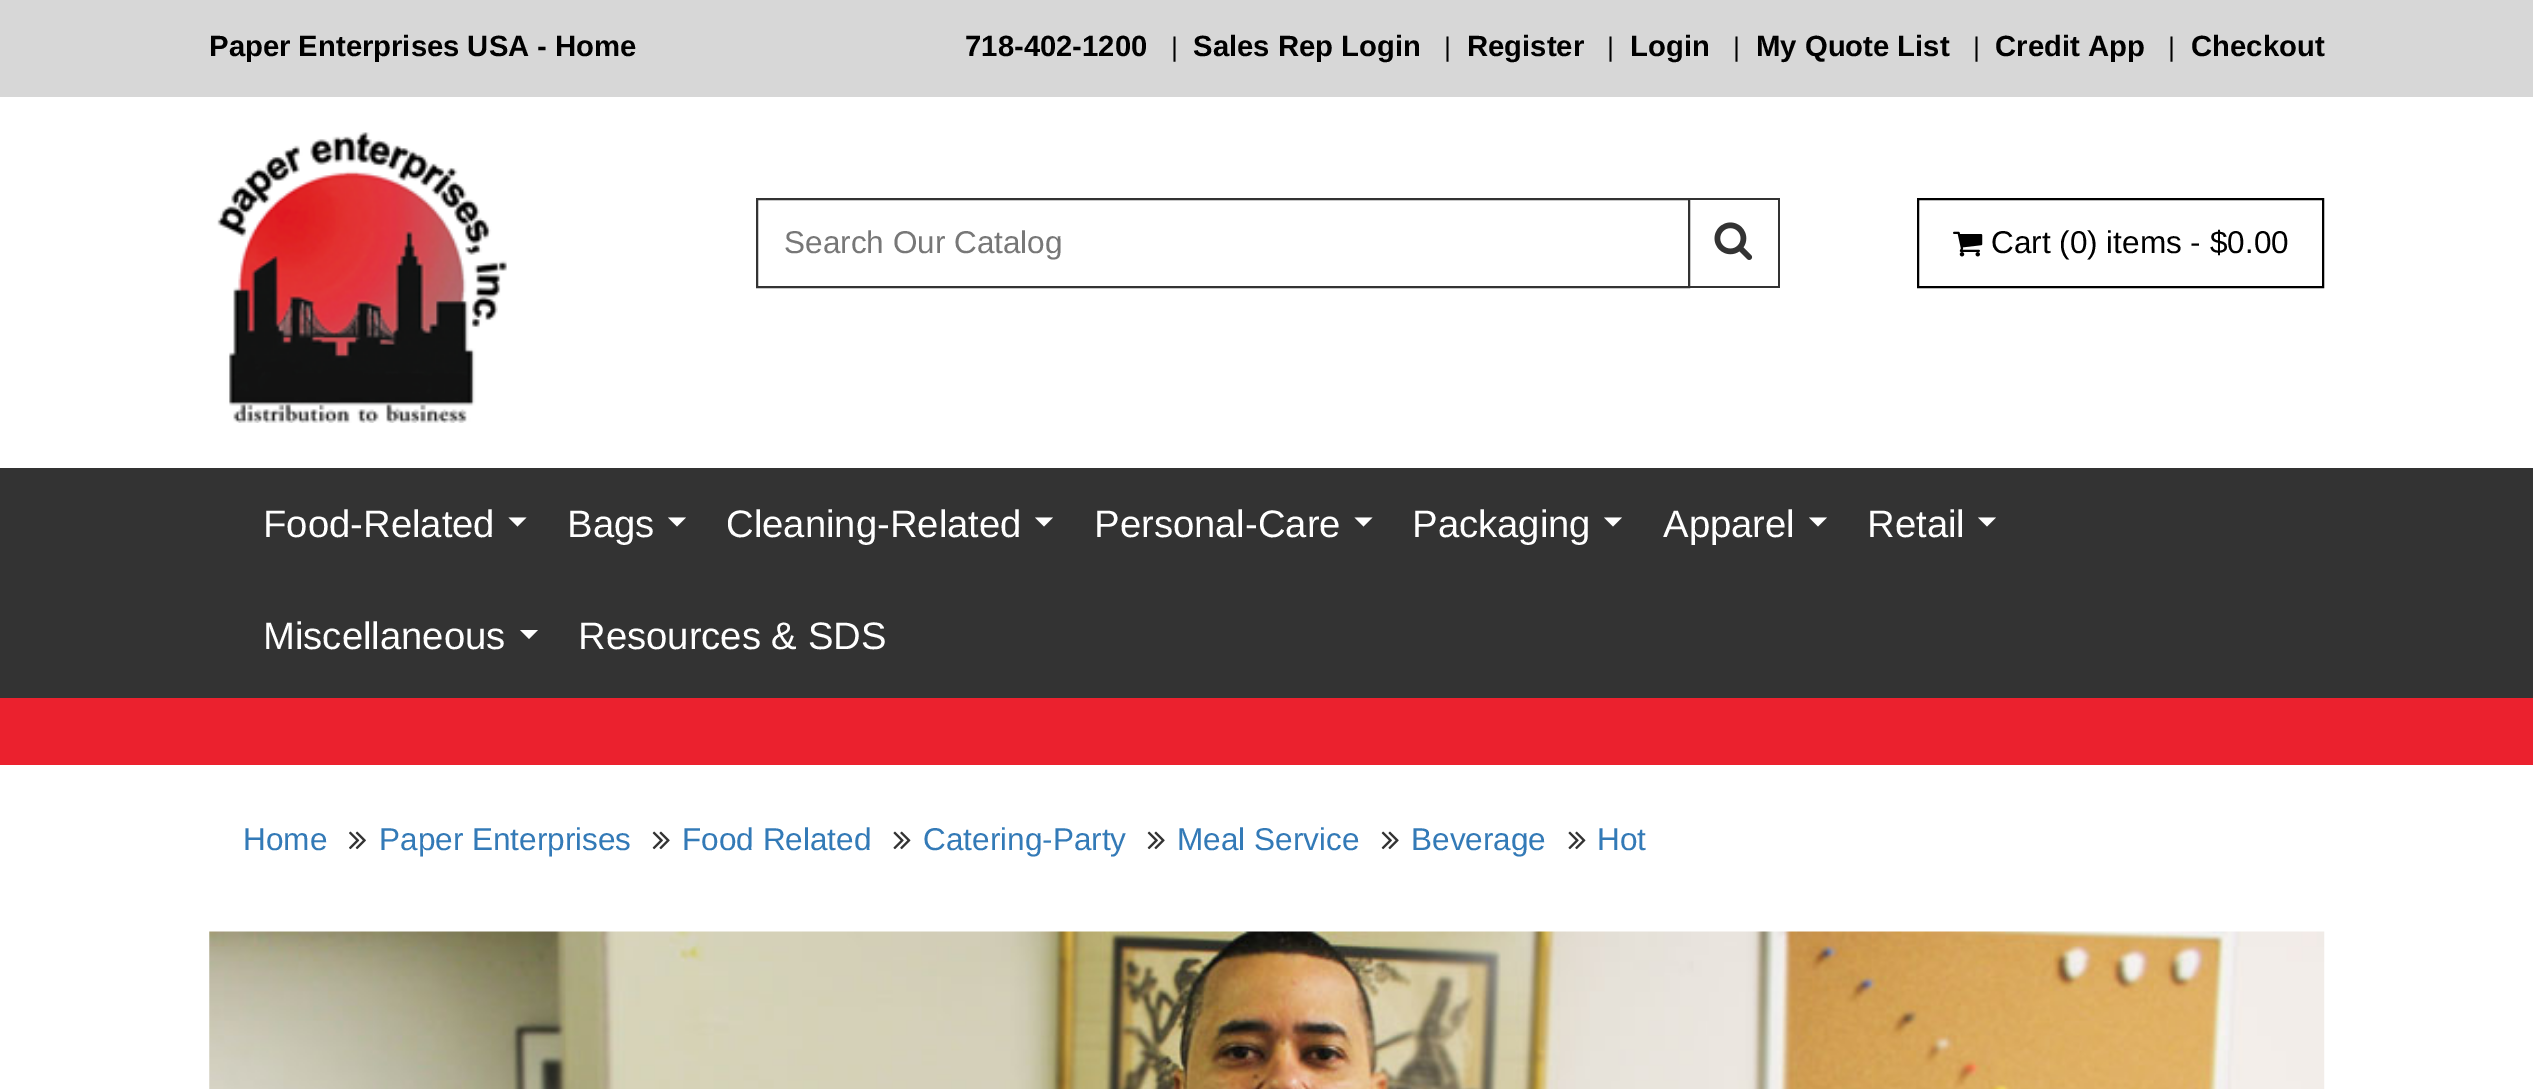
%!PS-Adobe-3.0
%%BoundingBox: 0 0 2533 1089
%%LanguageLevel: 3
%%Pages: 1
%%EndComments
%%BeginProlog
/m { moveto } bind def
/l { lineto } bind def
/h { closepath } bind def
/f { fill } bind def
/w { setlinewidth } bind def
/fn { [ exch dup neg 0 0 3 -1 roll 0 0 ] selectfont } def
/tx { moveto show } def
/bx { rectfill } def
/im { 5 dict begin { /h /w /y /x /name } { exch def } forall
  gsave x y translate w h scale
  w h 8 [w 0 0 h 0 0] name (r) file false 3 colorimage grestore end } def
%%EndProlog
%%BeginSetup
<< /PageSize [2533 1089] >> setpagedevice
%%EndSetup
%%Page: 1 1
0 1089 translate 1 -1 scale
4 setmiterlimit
1 setgray
0 0 2533 1089 bx
0.843 setgray
0 0 2533 97 bx
/LiberationSans-Bold 29.25 fn
0 setgray
(Paper Enterprises USA - Home) 209 56 tx
(718-402-1200) 965 56 tx
/LiberationSans-Regular 27 fn
(|) 1171 56 tx
/LiberationSans-Bold 29.25 fn
(Sales Rep Login) 1193 56 tx
/LiberationSans-Regular 27 fn
(|) 1444 56 tx
/LiberationSans-Bold 29.25 fn
(Register) 1467 56 tx
/LiberationSans-Regular 27 fn
(|) 1607 56 tx
/LiberationSans-Bold 29.25 fn
(Login) 1630 56 tx
/LiberationSans-Regular 27 fn
(|) 1733 56 tx
/LiberationSans-Bold 29.25 fn
(My Quote List) 1756 56 tx
/LiberationSans-Regular 27 fn
(|) 1973 56 tx
/LiberationSans-Bold 29.25 fn
(Credit App) 1995 56 tx
/LiberationSans-Regular 27 fn
(|) 2168 56 tx
/LiberationSans-Bold 29.25 fn
(Checkout) 2191 56 tx
(image0.raw) 217 132 290 291 im
0.2 setgray
2 w
757 199 932 88 rectstroke
/LiberationSans-Regular 31.5 fn
0.467 setgray
(Search Our Catalog) 784 253 tx
0.2 setgray
1690 198 90 2 bx
1778 198 2 90 bx
1690 286 90 2 bx
(image1.raw) 1714 222 39 38 im
0 setgray
1918 199 405 88 rectstroke
(image2.raw) 1953 231 30 26 im
(Cart \(0\) items - $0.00) 1991 253 tx
0.2 setgray
0 468 2533 230 bx
/LiberationSans-Regular 38.25 fn
1 setgray
(Food-Related) 263 537 tx
508.5 517.5 m 526.5 517.5 l 517.5 526.5 l h f
(Bags) 567 537 tx
668 517.5 m 686 517.5 l 677 526.5 l h f
(Cleaning-Related) 726 537 tx
1035 517.5 m 1053 517.5 l 1044 526.5 l h f
(Personal-Care) 1094 537 tx
1354.5 517.5 m 1372.5 517.5 l 1363.5 526.5 l h f
(Packaging) 1412 537 tx
1604 517.5 m 1622 517.5 l 1613 526.5 l h f
(Apparel) 1663 537 tx
1809 517.5 m 1827 517.5 l 1818 526.5 l h f
(Retail) 1867 537 tx
1978 517.5 m 1996 517.5 l 1987 526.5 l h f
(Miscellaneous) 263 649 tx
520 630 m 538 630 l 529 639 l h f
(Resources & SDS) 578 649 tx
0.922 0.129 0.18 setrgbcolor
0 698 2533 67 bx
/LiberationSans-Regular 31.5 fn
0.2 0.478 0.718 setrgbcolor
(Home) 243 850 tx
(image3.raw) 349 831 17 19 im
(Paper Enterprises) 379 850 tx
(image4.raw) 652 831 18 19 im
(Food Related) 682 850 tx
(image5.raw) 893 831 18 19 im
(Catering-Party) 923 850 tx
(image4.raw) 1147 831 18 19 im
(Meal Service) 1177 850 tx
(image4.raw) 1381 831 18 19 im
(Beverage) 1411 850 tx
(image5.raw) 1568 831 18 19 im
(Hot) 1597 850 tx
(image6.raw) 209 931 2116 158 im
showpage
%%EOF
